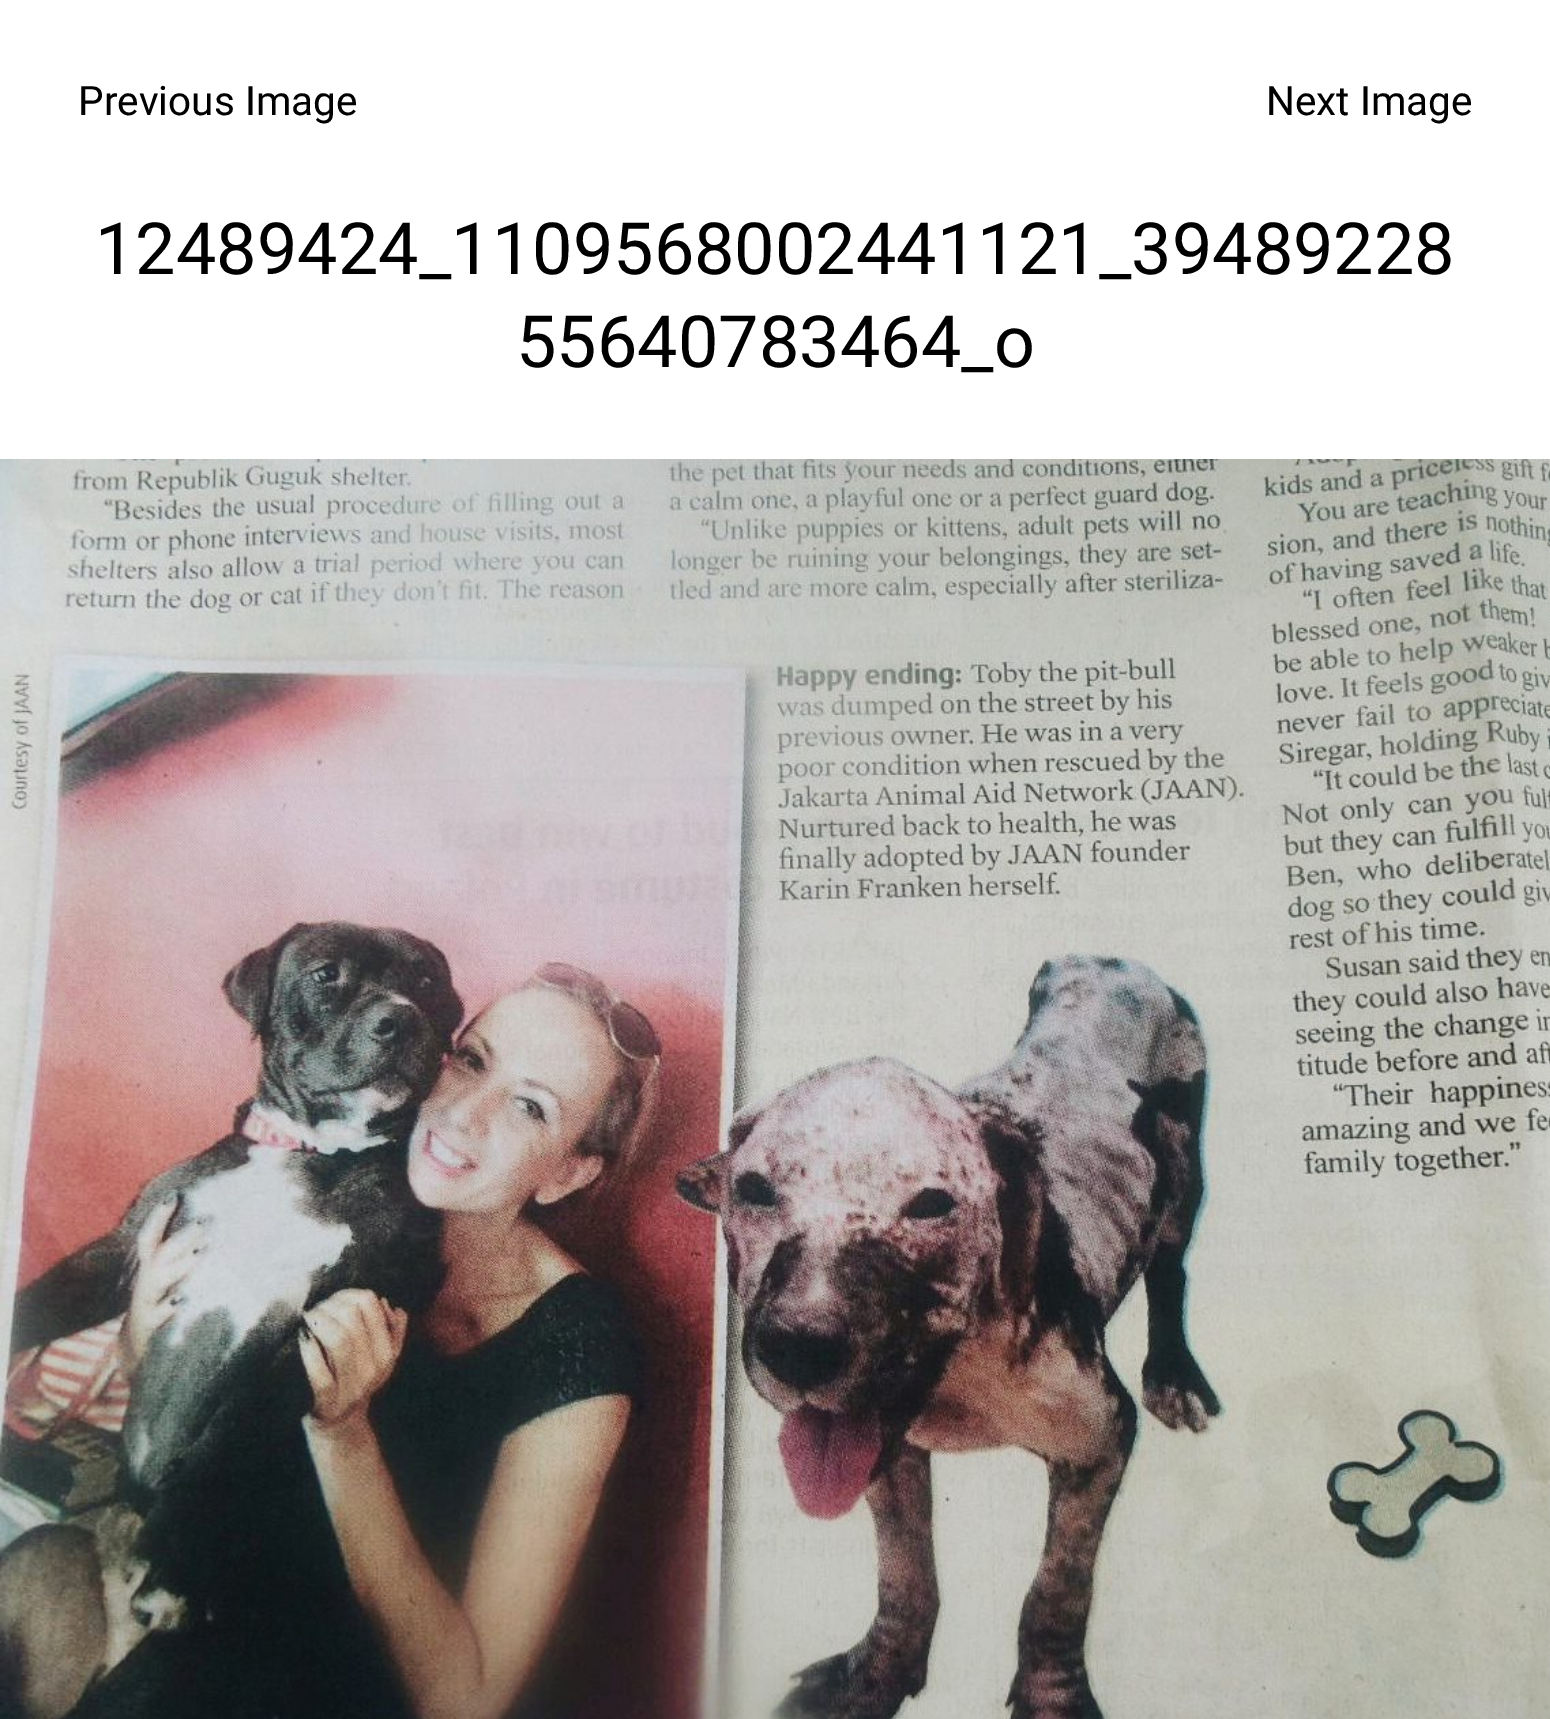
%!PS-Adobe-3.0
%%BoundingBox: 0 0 1550 1719
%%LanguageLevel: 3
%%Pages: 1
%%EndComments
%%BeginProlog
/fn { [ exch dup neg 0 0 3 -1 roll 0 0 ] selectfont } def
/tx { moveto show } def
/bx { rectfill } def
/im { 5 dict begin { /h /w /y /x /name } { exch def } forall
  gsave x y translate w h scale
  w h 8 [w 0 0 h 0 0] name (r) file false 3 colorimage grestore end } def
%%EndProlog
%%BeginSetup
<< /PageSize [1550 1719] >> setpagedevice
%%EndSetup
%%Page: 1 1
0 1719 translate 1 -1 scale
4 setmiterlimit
1 setgray
0 0 1550 1719 bx
/Roboto-Regular 40.5 fn
0 setgray
(Previous Image) 78 115 tx
(Next Image) 1266 115 tx
/Roboto-Regular 72 fn
(12489424_1109568002441121_39489228) 95 274 tx
(55640783464_o) 516 367 tx
(image0.raw) 0 459 1550 1260 im
showpage
%%EOF
